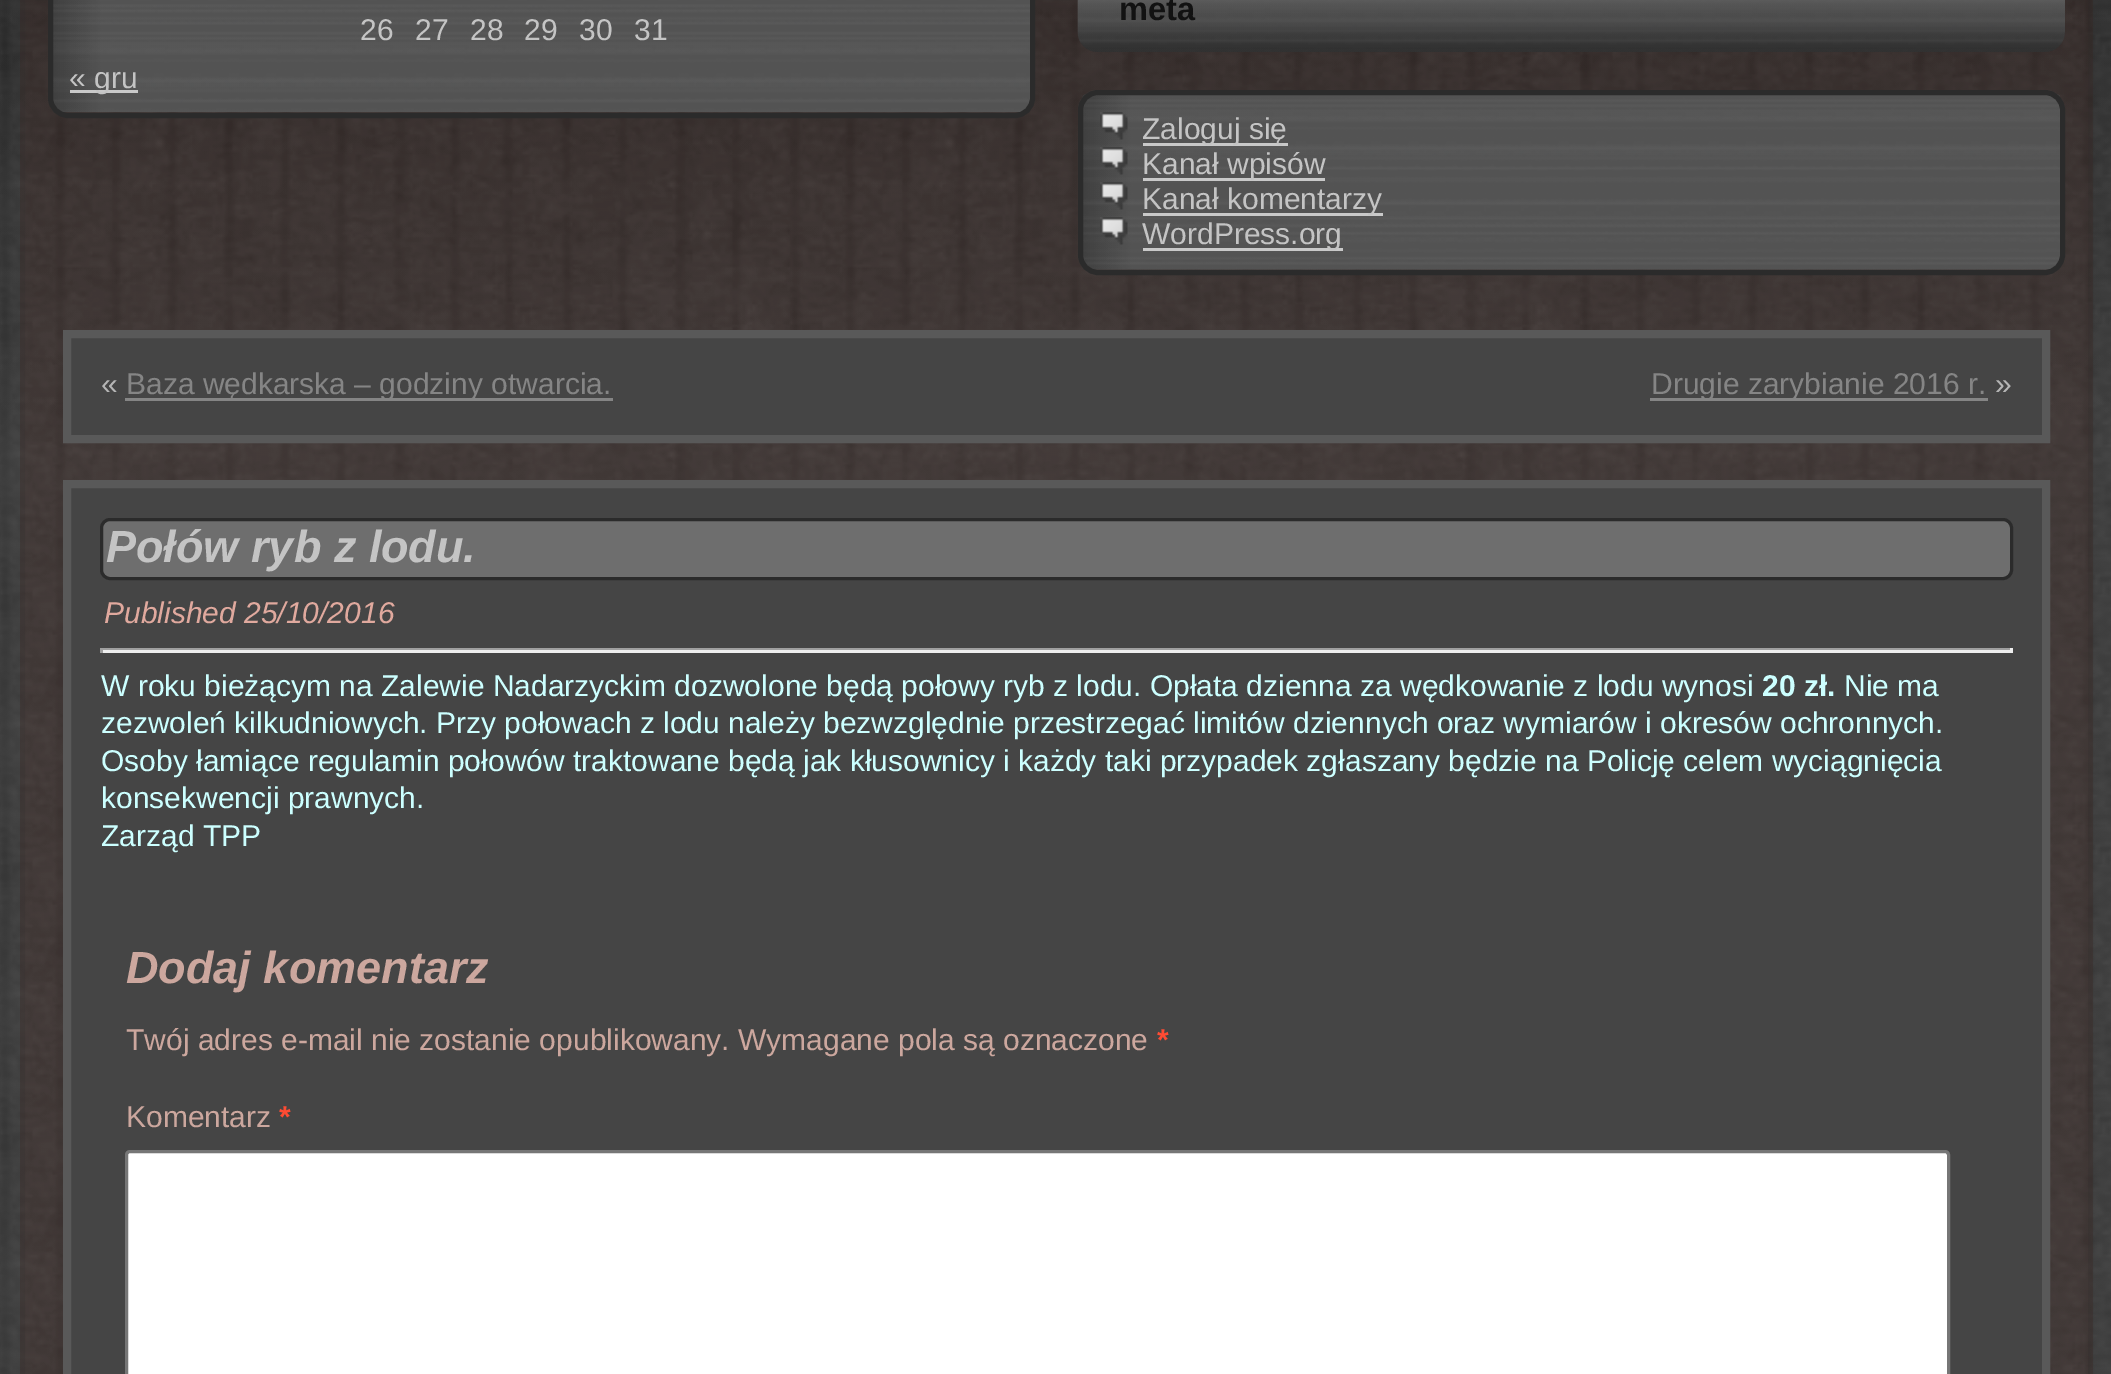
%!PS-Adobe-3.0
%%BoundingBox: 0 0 2111 1374
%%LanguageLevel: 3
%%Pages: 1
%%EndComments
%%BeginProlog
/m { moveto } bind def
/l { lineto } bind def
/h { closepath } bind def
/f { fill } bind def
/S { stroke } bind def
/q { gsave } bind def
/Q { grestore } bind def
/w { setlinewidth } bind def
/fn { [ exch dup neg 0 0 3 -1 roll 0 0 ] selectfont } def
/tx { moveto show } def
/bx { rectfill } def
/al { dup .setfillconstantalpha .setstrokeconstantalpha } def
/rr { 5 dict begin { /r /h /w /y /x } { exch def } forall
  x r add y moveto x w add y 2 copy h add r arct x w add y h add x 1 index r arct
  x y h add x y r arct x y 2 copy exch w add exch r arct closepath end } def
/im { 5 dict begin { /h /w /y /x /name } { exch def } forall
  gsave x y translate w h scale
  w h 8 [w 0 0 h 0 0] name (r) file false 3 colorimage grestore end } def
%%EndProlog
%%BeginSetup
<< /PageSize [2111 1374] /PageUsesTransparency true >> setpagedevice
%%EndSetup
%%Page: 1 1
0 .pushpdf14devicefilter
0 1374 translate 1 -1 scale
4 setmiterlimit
1 setgray
0 0 2111 1374 bx
(image0.raw) 0 0 2111 1374 im
0.2 al
0.29 0.125 0.09 setrgbcolor
20 0 2073 1374 bx
0.169 setgray
5 w
22.5 -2.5 2068 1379 rectstroke
1 al
(image1.raw) 48 0 987 115 im
50.5 -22.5 982 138 17.5 rr S
/LiberationSans-Regular 30 fn
0.769 setgray
(26) 360 40 tx
(27) 415 40 tx
(28) 470 40 tx
(29) 524 40 tx
(30) 579 40 tx
(31) 634 40 tx
0.788 setgray
70 90 68 3 bx
0.769 setgray
(« gru) 69 88 tx
(image2.raw) 1077 0 988 52 im
/LiberationSans-Bold 32.5 fn
0.071 setgray
(meta) 1119 20 tx
(image3.raw) 1078 90 987 184 im
0.169 setgray
1080.5 92.5 982 180 17.5 rr S
(image4.raw) 1100 112 28 28 im
0.788 setgray
1143 143 145 3 bx
/LiberationSans-Regular 30 fn
0.769 setgray
(Zaloguj się) 1142 139 tx
(image5.raw) 1100 147 28 28 im
0.788 setgray
1143 178 182 3 bx
0.769 setgray
(Kanał wpisów) 1142 174 tx
(image6.raw) 1100 182 28 28 im
0.788 setgray
1143 213 240 3 bx
0.769 setgray
(Kanał komentarzy) 1142 209 tx
(image7.raw) 1100 217 28 28 im
0.788 setgray
1143 248 200 3 bx
0.769 setgray
(WordPress.org) 1142 244 tx
0.271 setgray
67 334 m 2046 334 l 2046 439 l 67 439 l h q f Q
0.349 setgray
8 w
S
0.71 setgray
(«) 101 394 tx
0.522 setgray
125 398 488 3 bx
(Baza wędkarska – godziny otwarcia.) 126 394 tx
1650 398 338 3 bx
(Drugie zarybianie 2016 r.) 1651 394 tx
0.71 setgray
(») 1995 394 tx
0.271 setgray
67 484 m 2046 484 l 2046 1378 l 67 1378 l h q f Q
0.349 setgray
S
0.431 setgray
101.5 519.5 1910 59 8.5 rr q f Q
0.169 setgray
3 w
S
/LiberationSans-BoldItalic 45 fn
0.769 setgray
(Połów ryb z lodu.) 106 562 tx
/LiberationSans-Italic 30 fn
0.878 0.663 0.62 setrgbcolor
(Published 25/10/2016) 104 623 tx
0.624 setgray
100 648 1913 2 bx
0.933 setgray
2010 648 3 5 bx
100 650 1913 3 bx
0.624 setgray
100 648 3 5 bx
/LiberationSans-Regular 30 fn
0.8 1 1 setrgbcolor
(W roku bieżącym na Zalewie Nadarzyckim dozwolone będą połowy ryb z lodu. Opłata dzienna za wędkowanie z lodu wynosi) 101 696 tx
/LiberationSans-Bold 30 fn
(20 zł.) 1762 696 tx
/LiberationSans-Regular 30 fn
(Nie ma) 1844 696 tx
(zezwoleń kilkudniowych. Przy połowach z lodu należy bezwzględnie przestrzegać limitów dziennych oraz wymiarów i okresów ochronnych.) 101 733 tx
(Osoby łamiące regulamin połowów traktowane będą jak kłusownicy i każdy taki przypadek zgłaszany będzie na Policję celem wyciągnięcia) 101 771 tx
(konsekwencji prawnych.) 101 808 tx
(Zarząd TPP) 101 846 tx
/LiberationSans-BoldItalic 45 fn
0.8 0.655 0.62 setrgbcolor
(Dodaj komentarz) 126 983 tx
/LiberationSans-Regular 30 fn
(Twój adres e-mail nie zostanie opublikowany. Wymagane pola są oznaczone) 126 1050 tx
/LiberationSans-Bold 30 fn
1 0.294 0.2 setrgbcolor
(*) 1157 1050 tx
/LiberationSans-Regular 30 fn
0.8 0.655 0.62 setrgbcolor
(Komentarz) 126 1127 tx
/LiberationSans-Bold 30 fn
1 0.294 0.2 setrgbcolor
(*) 279 1127 tx
1 setgray
126.5 1151.5 1822 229 3.5 rr q f Q
0.463 setgray
S
.poppdf14devicefilter showpage
%%EOF
